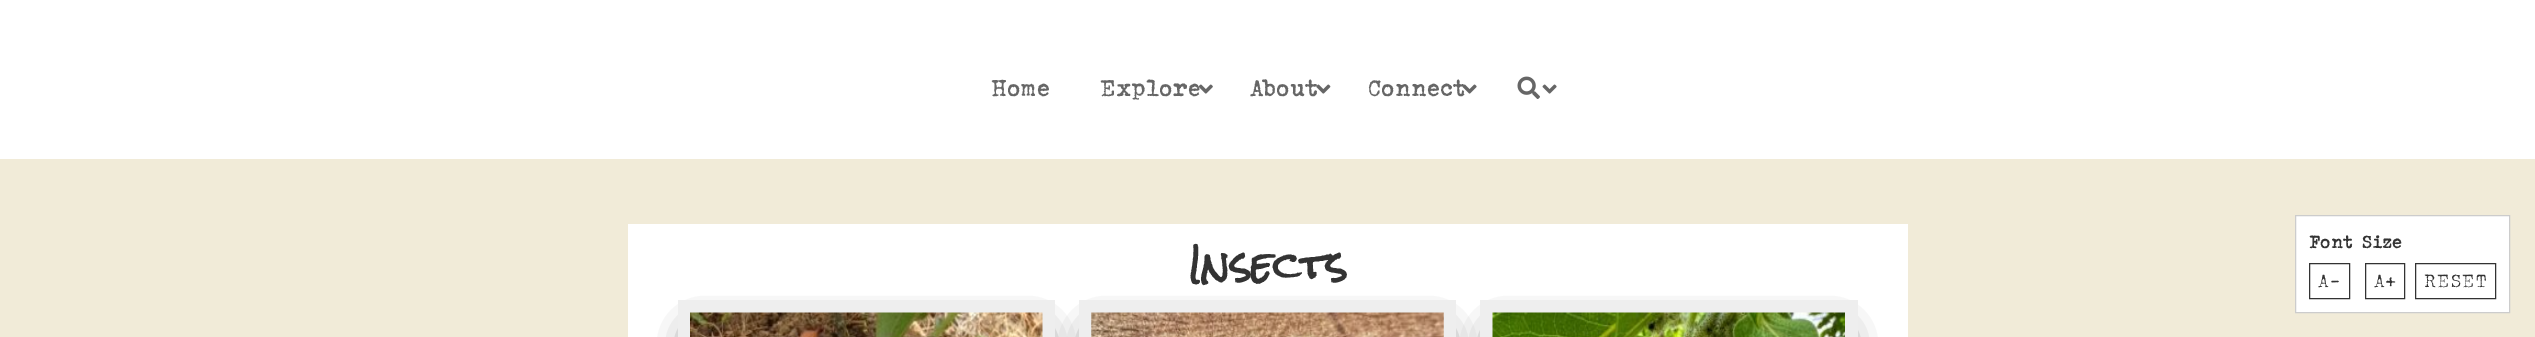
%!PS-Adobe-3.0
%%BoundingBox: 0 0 2535 337
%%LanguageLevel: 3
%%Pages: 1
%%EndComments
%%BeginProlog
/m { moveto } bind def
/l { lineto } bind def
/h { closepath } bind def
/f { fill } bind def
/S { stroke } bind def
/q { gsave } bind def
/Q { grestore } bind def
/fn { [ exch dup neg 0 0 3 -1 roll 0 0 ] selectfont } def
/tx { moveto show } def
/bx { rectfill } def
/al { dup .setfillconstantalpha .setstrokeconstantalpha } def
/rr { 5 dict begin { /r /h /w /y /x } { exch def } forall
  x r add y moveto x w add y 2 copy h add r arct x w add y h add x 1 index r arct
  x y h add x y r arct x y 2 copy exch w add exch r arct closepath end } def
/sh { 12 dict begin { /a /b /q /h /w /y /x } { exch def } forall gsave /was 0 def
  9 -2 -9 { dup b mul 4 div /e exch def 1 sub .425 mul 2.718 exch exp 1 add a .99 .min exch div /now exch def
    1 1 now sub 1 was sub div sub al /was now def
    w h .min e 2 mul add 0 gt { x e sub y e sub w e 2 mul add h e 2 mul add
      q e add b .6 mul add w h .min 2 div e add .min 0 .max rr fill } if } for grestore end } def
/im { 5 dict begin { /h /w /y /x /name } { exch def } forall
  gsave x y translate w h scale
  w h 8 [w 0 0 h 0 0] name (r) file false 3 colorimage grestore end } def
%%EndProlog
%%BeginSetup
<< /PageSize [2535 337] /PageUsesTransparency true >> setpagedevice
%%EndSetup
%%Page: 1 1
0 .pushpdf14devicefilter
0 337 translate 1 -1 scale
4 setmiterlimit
0.945 0.922 0.847 setrgbcolor
0 0 2535 337 bx
1 setgray
0 0 2535 159 bx
/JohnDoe-Bold 22.5 fn
0.4 setgray
(Home) 991 96 tx
(Explore) 1100 96 tx
(image0.raw) 1198 84 15 10 im
(About) 1250 96 tx
(image1.raw) 1316 84 15 10 im
(Connect) 1368 96 tx
(image2.raw) 1462 84 15 10 im
(image3.raw) 1517 76 23 23 im
(image4.raw) 1542 84 15 10 im
1 setgray
628 224 1280 113 bx
/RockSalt-Bold 37.5 fn
0.2 setgray
(Insects) 1188 280 tx
0.933 setgray
678 300 377 37 bx
q
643 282 m 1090 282 l 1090 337 l 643 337 l h 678 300 m 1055 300 l 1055 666 l 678 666 l h eoclip newpath
0 setgray
695 334 343 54 0 17 1 sh
Q
(image5.raw) 690 312 353 25 im
1079 300 377 37 bx
q
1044 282 m 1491 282 l 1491 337 l 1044 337 l h 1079 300 m 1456 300 l 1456 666 l 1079 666 l h eoclip newpath
0 setgray
1096 334 343 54 0 17 1 sh
Q
(image6.raw) 1091 312 353 25 im
1480 300 378 37 bx
q
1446 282 m 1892 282 l 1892 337 l 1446 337 l h 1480 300 m 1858 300 l 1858 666 l 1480 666 l h eoclip newpath
0 setgray
1498 334 342 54 0 17 1 sh
Q
(image7.raw) 1492 312 353 25 im
1 setgray
2295.5 215.5 m 2509.5 215.5 l 2509.5 312.5 l 2295.5 312.5 l h q f Q
0.8 setgray
S
/JohnDoe-Bold 17.5 fn
0.2 setgray
(Font Size) 2309 248 tx
2309.5 263.5 40 35 rectstroke
/JohnDoe-Regular 17.5 fn
2318 287 m 1.25 0 (A-) ashow
2365.5 263.5 39 35 rectstroke
2374 287 m 1.25 0 (A+) ashow
2415.5 263.5 80 35 rectstroke
2424 287 m 1.25 0 (RESET) ashow
.poppdf14devicefilter showpage
%%EOF
